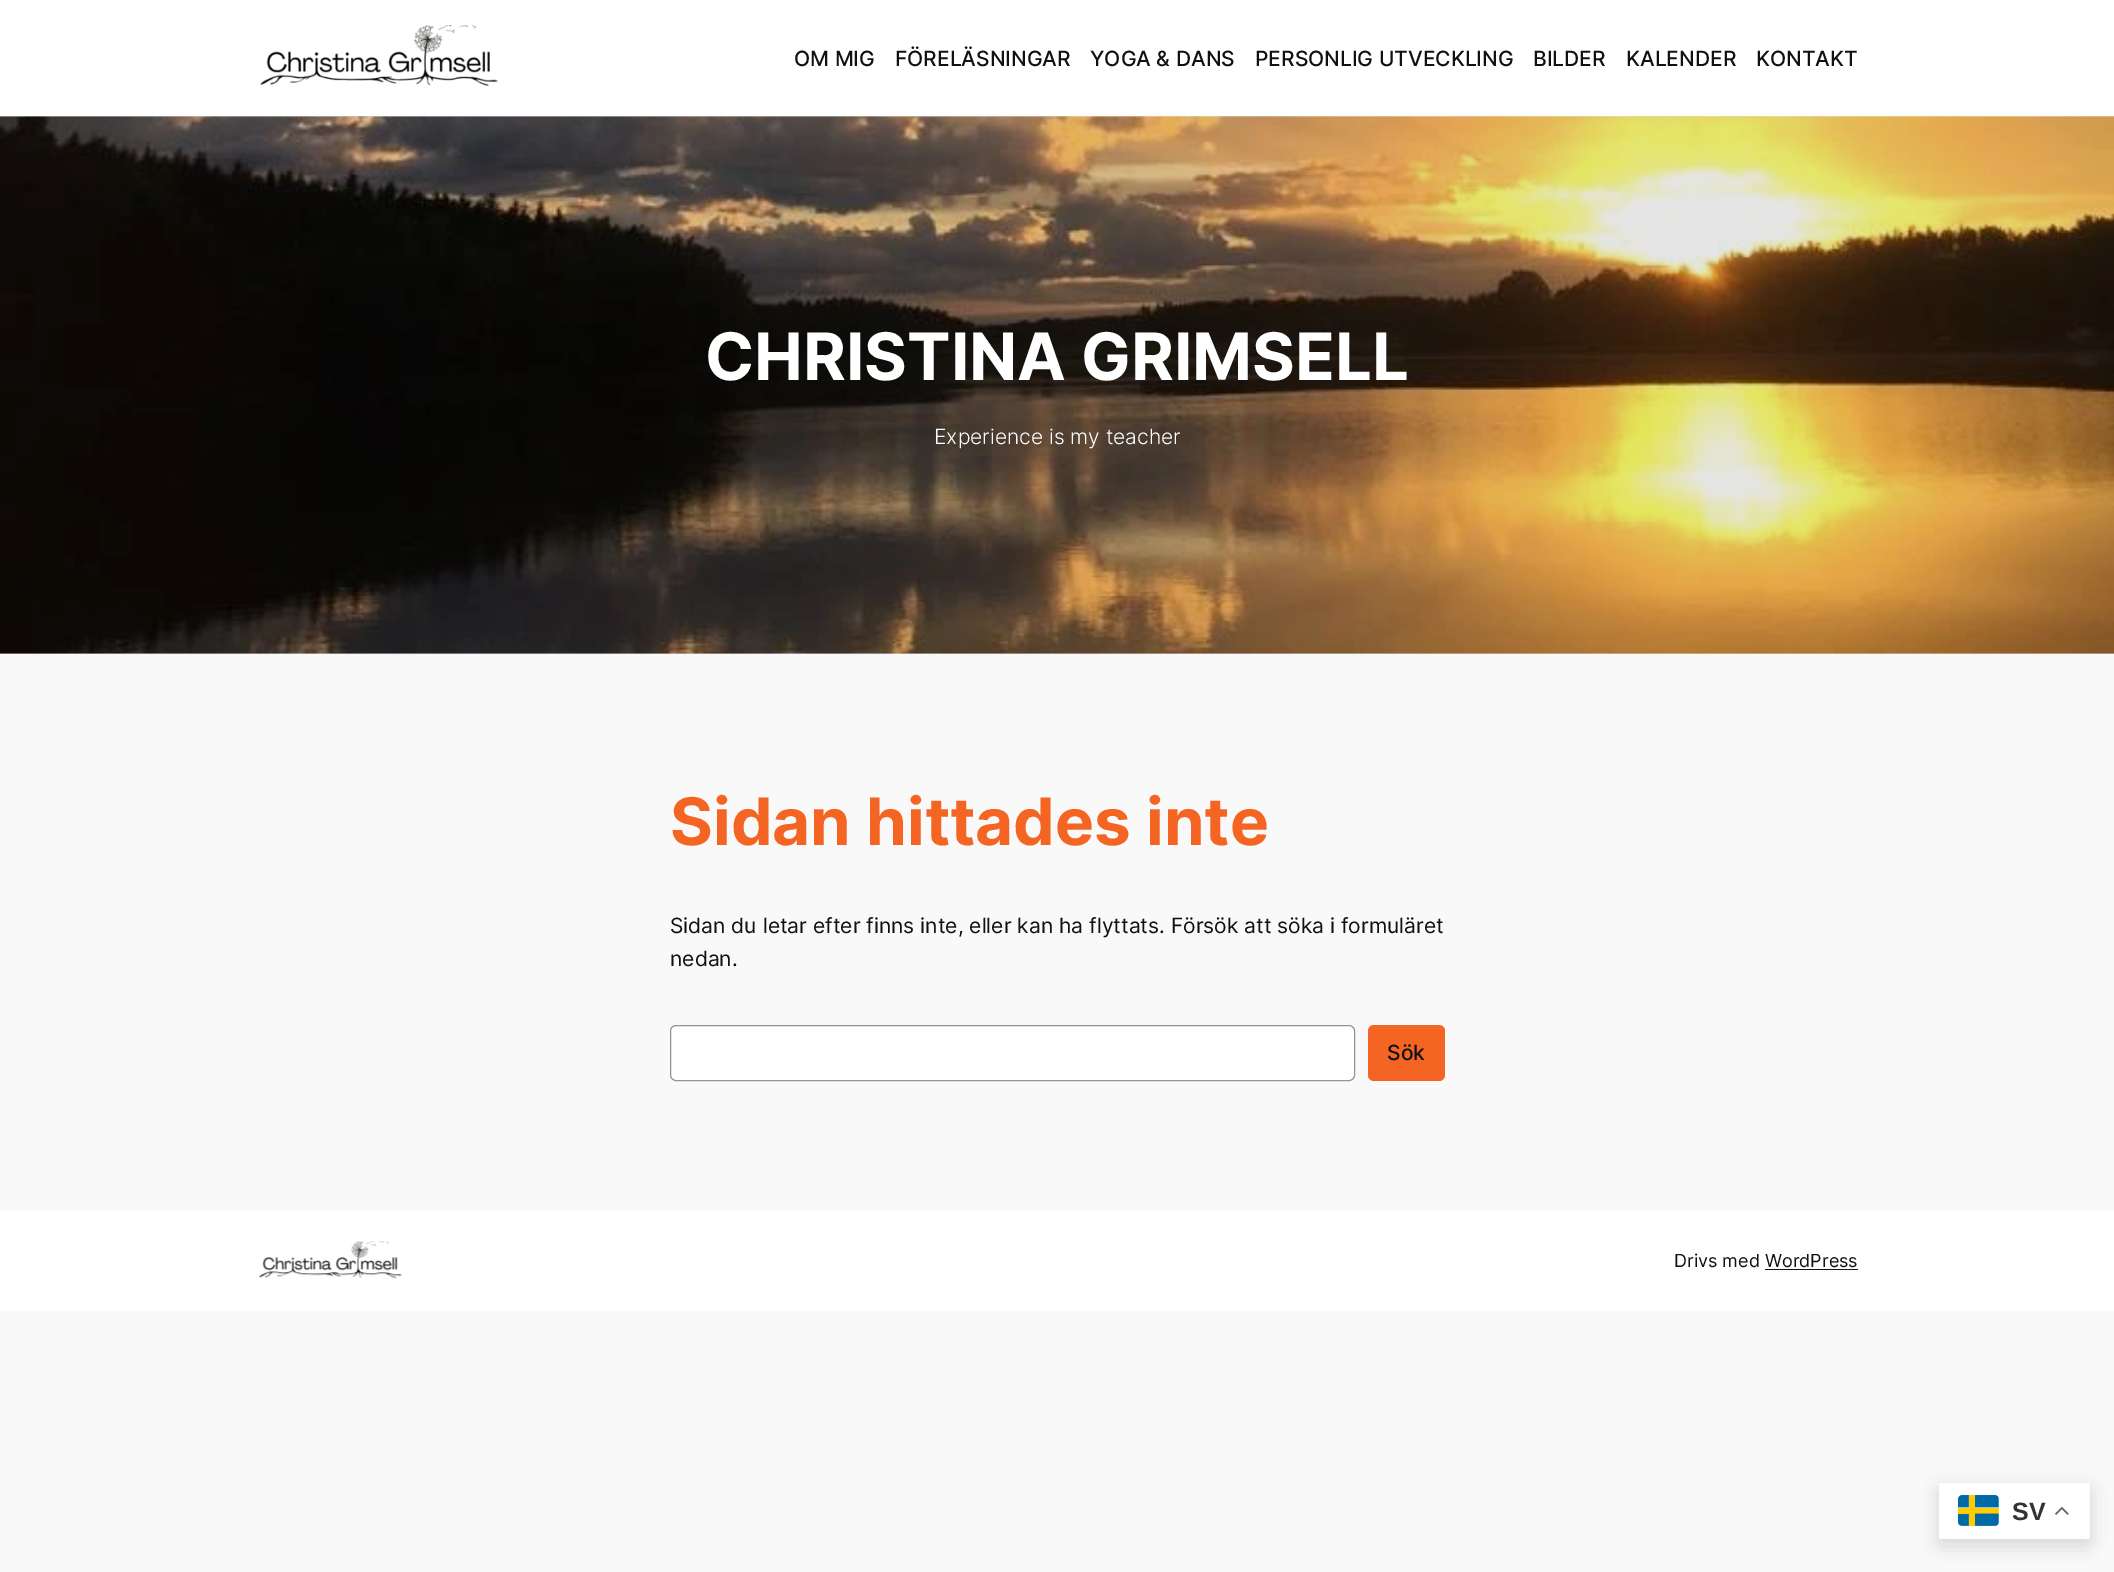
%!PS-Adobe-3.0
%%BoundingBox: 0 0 2114 1572
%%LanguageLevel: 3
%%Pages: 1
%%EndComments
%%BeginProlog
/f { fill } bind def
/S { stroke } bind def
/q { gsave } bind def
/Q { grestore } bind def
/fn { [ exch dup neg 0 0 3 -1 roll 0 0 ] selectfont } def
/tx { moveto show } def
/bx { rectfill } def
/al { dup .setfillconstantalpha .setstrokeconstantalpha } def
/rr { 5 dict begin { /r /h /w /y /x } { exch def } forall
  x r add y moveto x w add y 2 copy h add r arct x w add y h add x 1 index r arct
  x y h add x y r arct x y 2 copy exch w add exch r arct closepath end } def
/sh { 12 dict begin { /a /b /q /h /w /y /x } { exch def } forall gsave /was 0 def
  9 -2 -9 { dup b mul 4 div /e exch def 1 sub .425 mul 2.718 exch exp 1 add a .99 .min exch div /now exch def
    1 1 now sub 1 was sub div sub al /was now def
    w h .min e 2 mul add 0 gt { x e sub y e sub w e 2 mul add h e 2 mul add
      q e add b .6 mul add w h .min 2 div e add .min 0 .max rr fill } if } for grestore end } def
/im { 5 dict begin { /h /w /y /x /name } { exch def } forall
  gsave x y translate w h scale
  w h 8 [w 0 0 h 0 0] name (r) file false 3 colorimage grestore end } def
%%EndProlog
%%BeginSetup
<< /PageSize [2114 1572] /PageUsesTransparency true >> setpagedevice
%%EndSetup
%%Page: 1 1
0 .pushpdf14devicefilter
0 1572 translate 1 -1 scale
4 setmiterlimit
0.976 setgray
0 0 2114 1572 bx
0.878 setgray
0 116 2114 538 bx
1 setgray
0 0 2114 116 bx
(image0.raw) 260 25 238 62 im
/Inter-Medium 21 fn
0.067 setgray
(OM MIG) 794 66 tx
(FÖRELÄSNINGAR) 895 66 tx
(YOGA & DANS) 1090 66 tx
(PERSONLIG UTVECKLING) 1255 66 tx
(BILDER) 1533 66 tx
(KALENDER) 1626 66 tx
(KONTAKT) 1756 66 tx
(image1.raw) 0 116 2114 538 im
/Inter-Bold 65.4 fn
1 setgray
(CHRISTINA GRIMSELL) 705 380 tx
/Inter-Light 21 fn
(Experience is my teacher) 934 444 tx
/Inter-Bold 65.4 fn
0.957 0.396 0.141 setrgbcolor
(Sidan hittades inte) 670 845 tx
/Inter-Regular 21 fn
0.067 setgray
(Sidan du letar efter finns inte, eller kan ha flyttats. Försök att söka i formuläret) 670 933 tx
(nedan.) 670 966 tx
1 setgray
670.5 1025.5 684 55 5.5 rr q f Q
0.58 setgray
S
0.957 0.396 0.141 setrgbcolor
1368 1025 77 56 6 rr f
/Inter-Medium 21 fn
0.067 setgray
(Sök) 1387 1060 tx
1 setgray
0 1211 2114 100 bx
(image2.raw) 258 1241 144 38 im
/Inter-Regular 18 fn
0.067 setgray
(Drivs med WordPress) 1674 1267 tx
1765 1269 93 1 bx
0 setgray
1939 1489 151 56 2.5 9.5 0.15 sh
1 setgray
1939 1483 151 56 2.5 rr f
(image3.raw) 1958 1495 41 31 im
/LiberationSans-Bold 25 fn
0.2 setgray
(SV) 2012 1520 tx
(image4.raw) 2055 1506 14 9 im
.poppdf14devicefilter showpage
%%EOF
